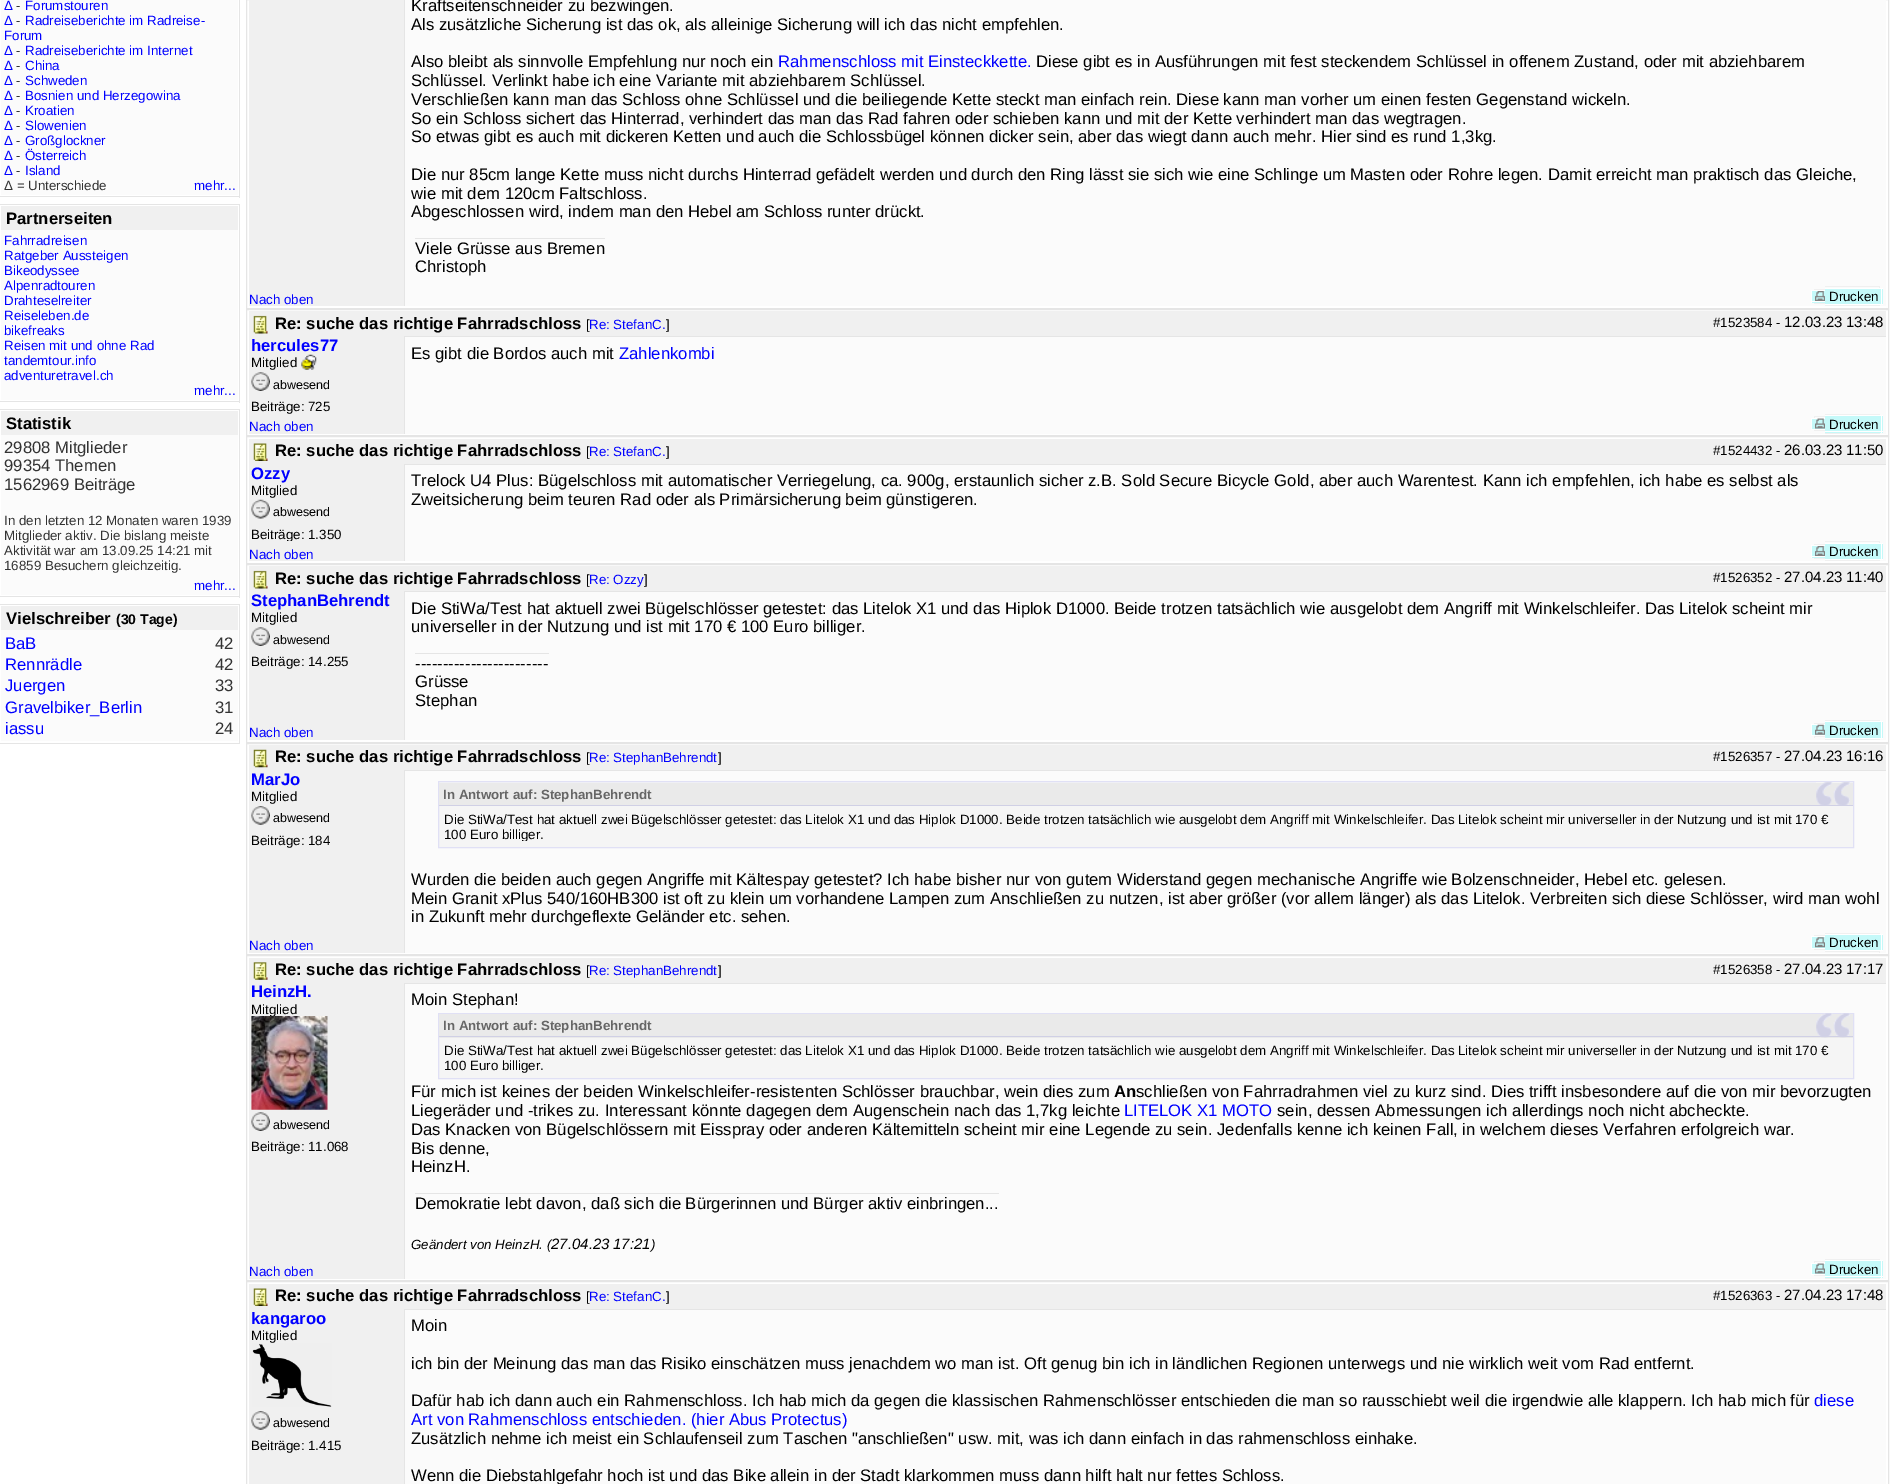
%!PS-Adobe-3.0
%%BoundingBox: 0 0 1894 1484
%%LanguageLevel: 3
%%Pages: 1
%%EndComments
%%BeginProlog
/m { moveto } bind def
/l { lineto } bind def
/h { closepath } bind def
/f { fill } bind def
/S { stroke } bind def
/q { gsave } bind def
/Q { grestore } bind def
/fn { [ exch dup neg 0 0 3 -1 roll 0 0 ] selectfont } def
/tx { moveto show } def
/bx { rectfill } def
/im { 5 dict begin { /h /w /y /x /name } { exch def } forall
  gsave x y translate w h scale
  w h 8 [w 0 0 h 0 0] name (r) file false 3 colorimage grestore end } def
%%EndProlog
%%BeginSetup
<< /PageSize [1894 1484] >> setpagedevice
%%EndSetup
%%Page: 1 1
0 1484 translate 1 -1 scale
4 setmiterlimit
1 setgray
0 0 1894 1484 bx
0.898 setgray
239 0 1 198 bx
0 196 240 1 bx
0.984 setgray
1 0 237 195 bx
/LiberationSans-Regular 13.33 fn
0 0 1 setrgbcolor
(Δ) 4 10 tx
0.2 setgray
(-) 16 10 tx
0 0 1 setrgbcolor
(Forumstouren) 25 10 tx
(Δ) 4 25 tx
0.2 setgray
(-) 16 25 tx
0 0 1 setrgbcolor
(Radreiseberichte im Radreise-) 25 25 tx
(Forum) 4 40 tx
(Δ) 4 55 tx
0.2 setgray
(-) 16 55 tx
0 0 1 setrgbcolor
(Radreiseberichte im Internet) 25 55 tx
(Δ) 4 70 tx
0.2 setgray
(-) 16 70 tx
0 0 1 setrgbcolor
(China) 25 70 tx
(Δ) 4 85 tx
0.2 setgray
(-) 16 85 tx
0 0 1 setrgbcolor
(Schweden) 25 85 tx
(Δ) 4 100 tx
0.2 setgray
(-) 16 100 tx
0 0 1 setrgbcolor
(Bosnien und Herzegowina) 25 100 tx
(Δ) 4 115 tx
0.2 setgray
(-) 16 115 tx
0 0 1 setrgbcolor
(Kroatien) 25 115 tx
(Δ) 4 130 tx
0.2 setgray
(-) 16 130 tx
0 0 1 setrgbcolor
(Slowenien) 25 130 tx
(Δ) 4 145 tx
0.2 setgray
(-) 16 145 tx
0 0 1 setrgbcolor
(Großglockner) 25 145 tx
(Δ) 4 160 tx
0.2 setgray
(-) 16 160 tx
0 0 1 setrgbcolor
(Österreich) 25 160 tx
(Δ) 4 175 tx
0.2 setgray
(-) 16 175 tx
0 0 1 setrgbcolor
(Island) 25 175 tx
0.2 setgray
(Δ = Unterschiede) 4 190 tx
0 0 1 setrgbcolor
(mehr...) 194 190 tx
0.898 setgray
0 204 240 1 bx
239 204 1 199 bx
0 401 240 1 bx
0.941 setgray
1 206 237 24 bx
/LiberationSans-Bold 16.67 fn
0 setgray
(Partnerseiten) 6 224 tx
0.984 setgray
1 230 237 170 bx
/LiberationSans-Regular 13.33 fn
0 0 1 setrgbcolor
(Fahrradreisen) 4 245 tx
(Ratgeber Aussteigen) 4 260 tx
(Bikeodyssee) 4 275 tx
(Alpenradtouren) 4 290 tx
(Drahteselreiter) 4 305 tx
(Reiseleben.de) 4 320 tx
(bikefreaks) 4 335 tx
(Reisen mit und ohne Rad) 4 350 tx
(tandemtour.info) 4 365 tx
(adventuretravel.ch) 4 380 tx
(mehr...) 194 395 tx
0.898 setgray
0 409 240 1 bx
239 409 1 189 bx
0 596 240 1 bx
0.941 setgray
1 411 237 24 bx
/LiberationSans-Bold 16.67 fn
0 setgray
(Statistik) 6 429 tx
0.984 setgray
1 435 237 160 bx
/LiberationSans-Regular 16.67 fn
0.2 setgray
(29808 Mitglieder) 4 453 tx
(99354 Themen) 4 471 tx
(1562969 Beiträge) 4 490 tx
/LiberationSans-Regular 13.33 fn
(In den letzten 12 Monaten waren 1939) 4 525 tx
(Mitglieder aktiv. Die bislang meiste) 4 540 tx
(Aktivität war am 13.09.25 14:21 mit) 4 555 tx
(16859 Besuchern gleichzeitig.) 4 570 tx
0 0 1 setrgbcolor
(mehr...) 194 590 tx
0.898 setgray
0 604 240 1 bx
239 604 1 140 bx
0 743 240 1 bx
0.941 setgray
1 606 237 24 bx
/LiberationSans-Bold 16.67 fn
0 setgray
(Vielschreiber) 6 624 tx
/LiberationSans-Bold 14 fn
(\(30 Tage\)) 116 624 tx
0.984 setgray
1 630 237 111 bx
/LiberationSans-Regular 16.67 fn
0 0 1 setrgbcolor
(BaB) 5 649 tx
0.2 setgray
(42) 215 649 tx
0 0 1 setrgbcolor
(Rennrädle) 5 670 tx
0.2 setgray
(42) 215 670 tx
0 0 1 setrgbcolor
(Juergen) 5 691 tx
0.2 setgray
(33) 215 691 tx
0 0 1 setrgbcolor
(Gravelbiker_Berlin) 5 713 tx
0.2 setgray
(31) 215 713 tx
0 0 1 setrgbcolor
(iassu) 5 734 tx
0.2 setgray
(24) 215 734 tx
0.898 setgray
246.5 -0.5 1642 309 rectstroke
0.941 setgray
249 0 155 306 bx
0.984 setgray
405 0 1481 306 bx
0.898 setgray
404 0 1 306 bx
0 setgray
(Kraftseitenschneider zu bezwingen.) 411 11 tx
(Als zusätzliche Sicherung ist das ok, als alleinige Sicherung will ich das nicht empfehlen.) 411 30 tx
(Also bleibt als sinnvolle Empfehlung nur noch ein) 411 67 tx
0 0 1 setrgbcolor
(Rahmenschloss mit Einsteckkette.) 778 67 tx
0 setgray
(Diese gibt es in Ausführungen mit fest steckendem Schlüssel in offenem Zustand, oder mit abziehbarem) 1036 67 tx
(Schlüssel. Verlinkt habe ich eine Variante mit abziehbarem Schlüssel.) 411 86 tx
(Verschließen kann man das Schloss ohne Schlüssel und die beiliegende Kette steckt man einfach rein. Diese kann man vorher um einen festen Gegenstand wickeln.) 411 105 tx
(So ein Schloss sichert das Hinterrad, verhindert das man das Rad fahren oder schieben kann und mit der Kette verhindert man das wegtragen.) 411 124 tx
(So etwas gibt es auch mit dickeren Ketten und auch die Schlossbügel können dicker sein, aber das wiegt dann auch mehr. Hier sind es rund 1,3kg.) 411 142 tx
(Die nur 85cm lange Kette muss nicht durchs Hinterrad gefädelt werden und durch den Ring lässt sie sich wie eine Schlinge um Masten oder Rohre legen. Damit erreicht man praktisch das Gleiche,) 411 180 tx
(wie mit dem 120cm Faltschloss.) 411 199 tx
(Abgeschlossen wird, indem man den Hebel am Schloss runter drückt.) 411 217 tx
0.898 setgray
415 238 190 1 bx
0 setgray
(Viele Grüsse aus Bremen) 415 254 tx
(Christoph) 415 272 tx
/LiberationSans-Regular 13.33 fn
0 0 1 setrgbcolor
(Nach oben) 249 304 tx
0.941 setgray
1814 289 11 1 bx
1814 303 11 1 bx
1814 289 1 15 bx
0.773 0.976 0.976 setrgbcolor
1812 291 13 12 bx
(image0.raw) 1815 291 10 10 im
1825 289 58 15 bx
0 setgray
(Drucken) 1829 301 tx
0.941 setgray
1825 286 55 1 bx
1879 286 1 2 bx
1825 305 55 1 bx
1 setgray
1811 290 14 1 bx
1811 301 14 1 bx
1811 290 1 13 bx
1825 288 58 1 bx
1881 288 1 17 bx
1825 304 58 1 bx
0.898 setgray
246.5 309.5 1642 126 rectstroke
0.941 setgray
249 311 1637 25 bx
(image1.raw) 253 315 15 19 im
/LiberationSans-Bold 16.67 fn
0 setgray
(Re: suche das richtige Fahrradschloss) 275 329 tx
/LiberationSans-Regular 13.33 fn
([) 586 329 tx
0 0 1 setrgbcolor
(Re: StefanC.) 589 329 tx
0 setgray
(]) 666 329 tx
(#1523584 -) 1713 327 tx
/LiberationSans-Regular 15 fn
(12.03.23) 1784 327 tx
(13:48) 1846 327 tx
0.941 setgray
249 336 155 98 bx
/LiberationSans-Bold 16.67 fn
0 0 1 setrgbcolor
(hercules77) 251 351 tx
/LiberationSans-Regular 13.33 fn
0 setgray
(Mitglied) 251 367 tx
(image2.raw) 301 354 16 16 im
(image3.raw) 251 372 19 19 im
/LiberationSans-Regular 12.5 fn
(abwesend) 273 389 tx
/LiberationSans-Regular 13.33 fn
(Beiträge: 725) 251 411 tx
0.984 setgray
405 337 1481 97 bx
0.898 setgray
404 336 1482 1 bx
404 336 1 98 bx
/LiberationSans-Regular 16.67 fn
0 setgray
(Es gibt die Bordos auch mit) 411 359 tx
0 0 1 setrgbcolor
(Zahlenkombi) 619 359 tx
/LiberationSans-Regular 13.33 fn
(Nach oben) 249 431 tx
0.941 setgray
1814 416 11 1 bx
1814 430 11 1 bx
1814 416 1 15 bx
0.773 0.976 0.976 setrgbcolor
1812 419 13 10 bx
1 setgray
1811 418 14 1 bx
(image4.raw) 1815 418 10 11 im
0.773 0.976 0.976 setrgbcolor
1825 416 58 17 bx
0 setgray
(Drucken) 1829 429 tx
0.941 setgray
1825 414 55 1 bx
1825 433 55 1 bx
1 setgray
1811 429 14 1 bx
1811 418 1 12 bx
1825 415 58 1 bx
1881 415 1 18 bx
1825 431 58 1 bx
0.898 setgray
246.5 436.5 1642 127 rectstroke
0.941 setgray
249 439 1637 25 bx
(image5.raw) 253 443 15 18 im
/LiberationSans-Bold 16.67 fn
0 setgray
(Re: suche das richtige Fahrradschloss) 275 456 tx
/LiberationSans-Regular 13.33 fn
([) 586 456 tx
0 0 1 setrgbcolor
(Re: StefanC.) 589 456 tx
0 setgray
(]) 666 456 tx
(#1524432 -) 1713 455 tx
/LiberationSans-Regular 15 fn
(26.03.23) 1784 455 tx
(11:50) 1846 455 tx
0.941 setgray
249 464 155 97 bx
/LiberationSans-Bold 16.67 fn
0 0 1 setrgbcolor
(Ozzy) 251 479 tx
/LiberationSans-Regular 13.33 fn
0 setgray
(Mitglied) 251 495 tx
(image6.raw) 251 499 19 20 im
/LiberationSans-Regular 12.5 fn
(abwesend) 273 516 tx
q
251 464 150 77 rectclip
/LiberationSans-Regular 13.33 fn
(Beiträge: 1.350) 251 539 tx
Q
0.984 setgray
405 465 1481 96 bx
0.898 setgray
404 464 1482 1 bx
404 464 1 97 bx
/LiberationSans-Regular 16.67 fn
0 setgray
(Trelock U4 Plus: Bügelschloss mit automatischer Verriegelung, ca. 900g, erstaunlich sicher z.B. Sold Secure Bicycle Gold, aber auch Warentest. Kann ich empfehlen, ich habe es selbst als) 411 486 tx
(Zweitsicherung beim teuren Rad oder als Primärsicherung beim günstigeren.) 411 505 tx
/LiberationSans-Regular 13.33 fn
0 0 1 setrgbcolor
(Nach oben) 249 559 tx
0.941 setgray
1814 544 11 1 bx
1814 558 11 1 bx
1814 544 1 15 bx
0.773 0.976 0.976 setrgbcolor
1812 546 13 12 bx
(image0.raw) 1815 546 10 10 im
1825 544 58 15 bx
0 setgray
(Drucken) 1829 556 tx
0.941 setgray
1825 541 55 1 bx
1879 541 1 2 bx
1825 560 55 1 bx
1 setgray
1811 545 14 1 bx
1811 556 14 1 bx
1811 545 1 13 bx
1825 543 58 1 bx
1881 543 1 17 bx
1825 559 58 1 bx
0.898 setgray
246.5 564.5 1642 178 rectstroke
0.941 setgray
249 566 1637 25 bx
(image1.raw) 253 570 15 19 im
/LiberationSans-Bold 16.67 fn
0 setgray
(Re: suche das richtige Fahrradschloss) 275 584 tx
/LiberationSans-Regular 13.33 fn
([) 586 584 tx
0 0 1 setrgbcolor
(Re: Ozzy) 589 584 tx
0 setgray
(]) 644 584 tx
(#1526352 -) 1713 582 tx
/LiberationSans-Regular 15 fn
(27.04.23) 1784 582 tx
(11:40) 1846 582 tx
0.941 setgray
249 591 155 149 bx
/LiberationSans-Bold 16.67 fn
0 0 1 setrgbcolor
(StephanBehrendt) 251 606 tx
/LiberationSans-Regular 13.33 fn
0 setgray
(Mitglied) 251 622 tx
(image7.raw) 251 627 19 19 im
/LiberationSans-Regular 12.5 fn
(abwesend) 273 644 tx
/LiberationSans-Regular 13.33 fn
(Beiträge: 14.255) 251 666 tx
0.984 setgray
405 592 1481 148 bx
0.898 setgray
404 591 1482 1 bx
404 591 1 149 bx
/LiberationSans-Regular 16.67 fn
0 setgray
(Die StiWa/Test hat aktuell zwei Bügelschlösser getestet: das Litelok X1 und das Hiplok D1000. Beide trotzen tatsächlich wie ausgelobt dem Angriff mit Winkelschleifer. Das Litelok scheint mir) 411 614 tx
(universeller in der Nutzung und ist mit 170 € 100 Euro billiger.) 411 632 tx
0.898 setgray
415 653 134 1 bx
0 setgray
(------------------------) 415 669 tx
(Grüsse) 415 687 tx
(Stephan) 415 706 tx
/LiberationSans-Regular 13.33 fn
0 0 1 setrgbcolor
(Nach oben) 249 737 tx
0.941 setgray
1814 723 11 1 bx
1814 736 11 1 bx
1814 723 1 15 bx
0.773 0.976 0.976 setrgbcolor
1812 725 13 10 bx
1 setgray
1811 724 14 1 bx
(image8.raw) 1815 724 10 11 im
0.773 0.976 0.976 setrgbcolor
1825 722 58 16 bx
0 setgray
(Drucken) 1829 735 tx
0.941 setgray
1825 720 55 1 bx
1825 739 55 1 bx
1 setgray
1811 735 14 1 bx
1811 724 1 12 bx
1825 721 58 1 bx
1881 721 1 18 bx
1825 738 58 1 bx
0.898 setgray
246.5 743.5 1642 211 rectstroke
0.941 setgray
249 745 1637 25 bx
(image9.raw) 253 749 15 19 im
/LiberationSans-Bold 16.67 fn
0 setgray
(Re: suche das richtige Fahrradschloss) 275 762 tx
/LiberationSans-Regular 13.33 fn
([) 586 762 tx
0 0 1 setrgbcolor
(Re: StephanBehrendt) 589 762 tx
0 setgray
(]) 718 762 tx
(#1526357 -) 1713 761 tx
/LiberationSans-Regular 15 fn
(27.04.23) 1784 761 tx
(16:16) 1846 761 tx
0.941 setgray
249 770 155 183 bx
/LiberationSans-Bold 16.67 fn
0 0 1 setrgbcolor
(MarJo) 251 785 tx
/LiberationSans-Regular 13.33 fn
0 setgray
(Mitglied) 251 801 tx
(image10.raw) 251 806 19 19 im
/LiberationSans-Regular 12.5 fn
(abwesend) 273 822 tx
/LiberationSans-Regular 13.33 fn
(Beiträge: 184) 251 845 tx
0.984 setgray
405 771 1481 182 bx
0.898 setgray
404 770 1482 1 bx
404 770 1 183 bx
0.961 setgray
438.5 781.5 m 1853.5 781.5 l 1853.5 847.5 l 438.5 847.5 l h q f Q
0.878 0.878 0.961 setrgbcolor
S
0.918 setgray
439 783 1414 22 bx
(image11.raw) 1816 782 34 23 im
0.816 0.816 0.898 setrgbcolor
439 805 1414 1 bx
/LiberationSans-Bold 13.33 fn
0.4 setgray
(In Antwort auf: StephanBehrendt) 443 799 tx
/LiberationSans-Regular 13.33 fn
0 setgray
(Die StiWa/Test hat aktuell zwei Bügelschlösser getestet: das Litelok X1 und das Hiplok D1000. Beide trotzen tatsächlich wie ausgelobt dem Angriff mit Winkelschleifer. Das Litelok scheint mir universeller in der Nutzung und ist mit 170 €) 444 824 tx
q
444 811 1404 30 rectclip
(100 Euro billiger.) 444 839 tx
Q
/LiberationSans-Regular 16.67 fn
(Wurden die beiden auch gegen Angriffe mit Kältespay getestet? Ich habe bisher nur von gutem Widerstand gegen mechanische Angriffe wie Bolzenschneider, Hebel etc. gelesen.) 411 885 tx
(Mein Granit xPlus 540/160HB300 ist oft zu klein um vorhandene Lampen zum Anschließen zu nutzen, ist aber größer \(vor allem länger\) als das Litelok. Verbreiten sich diese Schlösser, wird man wohl) 411 904 tx
(in Zukunft mehr durchgeflexte Geländer etc. sehen.) 411 922 tx
/LiberationSans-Regular 13.33 fn
0 0 1 setrgbcolor
(Nach oben) 249 950 tx
0.941 setgray
1814 935 11 1 bx
1814 949 11 1 bx
1814 935 1 15 bx
0.773 0.976 0.976 setrgbcolor
1812 937 13 11 bx
(image12.raw) 1815 937 10 11 im
0.941 setgray
1825 933 55 1 bx
1879 933 1 20 bx
0.773 0.976 0.976 setrgbcolor
1825 935 58 15 bx
0 setgray
(Drucken) 1829 947 tx
0.941 setgray
1825 951 55 1 bx
1 setgray
1811 936 14 1 bx
1811 948 14 1 bx
1811 936 1 13 bx
1825 934 58 1 bx
1881 934 1 17 bx
1825 950 58 1 bx
0.898 setgray
246.5 955.5 1642 325 rectstroke
0.941 setgray
249 958 1637 25 bx
(image13.raw) 253 962 15 18 im
/LiberationSans-Bold 16.67 fn
0 setgray
(Re: suche das richtige Fahrradschloss) 275 975 tx
/LiberationSans-Regular 13.33 fn
([) 586 975 tx
0 0 1 setrgbcolor
(Re: StephanBehrendt) 589 975 tx
0 setgray
(]) 718 975 tx
(#1526358 -) 1713 974 tx
/LiberationSans-Regular 15 fn
(27.04.23) 1784 974 tx
(17:17) 1846 974 tx
0.941 setgray
249 983 155 296 bx
/LiberationSans-Bold 16.67 fn
0 0 1 setrgbcolor
(HeinzH.) 251 997 tx
/LiberationSans-Regular 13.33 fn
0 setgray
(Mitglied) 251 1014 tx
(image14.raw) 251 1016 77 94 im
(image7.raw) 251 1112 19 19 im
/LiberationSans-Regular 12.5 fn
(abwesend) 273 1129 tx
/LiberationSans-Regular 13.33 fn
(Beiträge: 11.068) 251 1151 tx
0.984 setgray
405 984 1481 295 bx
0.898 setgray
404 983 1482 1 bx
404 983 1 296 bx
/LiberationSans-Regular 16.67 fn
0 setgray
(Moin Stephan!) 411 1005 tx
0.961 setgray
439 1038 1414 40 bx
0.878 0.878 0.961 setrgbcolor
438.5 1013.5 1415 65 rectstroke
0.918 setgray
439 1014 1414 24 bx
(image15.raw) 1816 1013 34 25 im
0.816 0.816 0.898 setrgbcolor
439 1036 1414 1 bx
/LiberationSans-Bold 13.33 fn
0.4 setgray
(In Antwort auf: StephanBehrendt) 443 1030 tx
/LiberationSans-Regular 13.33 fn
0 setgray
(Die StiWa/Test hat aktuell zwei Bügelschlösser getestet: das Litelok X1 und das Hiplok D1000. Beide trotzen tatsächlich wie ausgelobt dem Angriff mit Winkelschleifer. Das Litelok scheint mir universeller in der Nutzung und ist mit 170 €) 444 1055 tx
(100 Euro billiger.) 444 1070 tx
/LiberationSans-Regular 16.67 fn
(Für mich ist keines der beiden Winkelschleifer-resistenten Schlösser brauchbar, wein dies zum) 411 1097 tx
/LiberationSans-Bold 16.67 fn
(An) 1114 1097 tx
/LiberationSans-Regular 16.67 fn
(schließen von Fahrradrahmen viel zu kurz sind. Dies trifft insbesondere auf die von mir bevorzugten) 1136 1097 tx
(Liegeräder und -trikes zu. Interessant könnte dagegen dem Augenschein nach das 1,7kg leichte) 411 1116 tx
0 0 1 setrgbcolor
(LITELOK X1 MOTO) 1124 1116 tx
0 setgray
(sein, dessen Abmessungen ich allerdings noch nicht abcheckte.) 1277 1116 tx
(Das Knacken von Bügelschlössern mit Eisspray oder anderen Kältemitteln scheint mir eine Legende zu sein. Jedenfalls kenne ich keinen Fall, in welchem dieses Verfahren erfolgreich war.) 411 1135 tx
(Bis denne,) 411 1154 tx
(HeinzH.) 411 1172 tx
0.898 setgray
415 1193 584 1 bx
0 setgray
(Demokratie lebt davon, daß sich die Bürgerinnen und Bürger aktiv einbringen...) 415 1209 tx
/LiberationSans-Italic 13.33 fn
(Geändert von HeinzH. \() 411 1249 tx
/LiberationSans-Italic 15 fn
(27.04.23) 551 1249 tx
(17:21) 613 1249 tx
/LiberationSans-Italic 13.33 fn
(\)) 651 1249 tx
/LiberationSans-Regular 13.33 fn
0 0 1 setrgbcolor
(Nach oben) 249 1276 tx
0.941 setgray
1814 1261 11 1 bx
1814 1275 11 1 bx
1814 1261 1 15 bx
0.773 0.976 0.976 setrgbcolor
1812 1264 13 10 bx
1 setgray
1811 1263 14 1 bx
(image4.raw) 1815 1263 10 11 im
0.773 0.976 0.976 setrgbcolor
1825 1261 58 17 bx
0 setgray
(Drucken) 1829 1274 tx
0.941 setgray
1825 1259 55 1 bx
1825 1278 55 1 bx
1 setgray
1811 1274 14 1 bx
1811 1263 1 12 bx
1825 1260 58 1 bx
1881 1260 1 18 bx
1825 1276 58 1 bx
0.898 setgray
246.5 1281.5 1642 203 rectstroke
0.941 setgray
249 1284 1637 25 bx
(image5.raw) 253 1288 15 18 im
/LiberationSans-Bold 16.67 fn
0 setgray
(Re: suche das richtige Fahrradschloss) 275 1301 tx
/LiberationSans-Regular 13.33 fn
([) 586 1301 tx
0 0 1 setrgbcolor
(Re: StefanC.) 589 1301 tx
0 setgray
(]) 666 1301 tx
(#1526363 -) 1713 1300 tx
/LiberationSans-Regular 15 fn
(27.04.23) 1784 1300 tx
(17:48) 1846 1300 tx
0.941 setgray
249 1309 155 175 bx
/LiberationSans-Bold 16.67 fn
0 0 1 setrgbcolor
(kangaroo) 251 1324 tx
/LiberationSans-Regular 13.33 fn
0 setgray
(Mitglied) 251 1340 tx
(image16.raw) 252 1343 80 64 im
(image10.raw) 251 1411 19 19 im
/LiberationSans-Regular 12.5 fn
(abwesend) 273 1427 tx
/LiberationSans-Regular 13.33 fn
(Beiträge: 1.415) 251 1450 tx
0.984 setgray
405 1310 1481 174 bx
0.898 setgray
404 1309 1482 1 bx
404 1309 1 175 bx
/LiberationSans-Regular 16.67 fn
0 setgray
(Moin) 411 1331 tx
(ich bin der Meinung das man das Risiko einschätzen muss jenachdem wo man ist. Oft genug bin ich in ländlichen Regionen unterwegs und nie wirklich weit vom Rad entfernt.) 411 1369 tx
(Dafür hab ich dann auch ein Rahmenschloss. Ich hab mich da gegen die klassischen Rahmenschlösser entschieden die man so rausschiebt weil die irgendwie alle klappern. Ich hab mich für) 411 1406 tx
0 0 1 setrgbcolor
(diese) 1814 1406 tx
(Art von Rahmenschloss entschieden. \(hier Abus Protectus\)) 411 1425 tx
0 setgray
(Zusätzlich nehme ich meist ein Schlaufenseil zum Taschen "anschließen" usw. mit, was ich dann einfach in das rahmenschloss einhake.) 411 1444 tx
(Wenn die Diebstahlgefahr hoch ist und das Bike allein in der Stadt klarkommen muss dann hilft halt nur fettes Schloss.) 411 1481 tx
showpage
%%EOF
